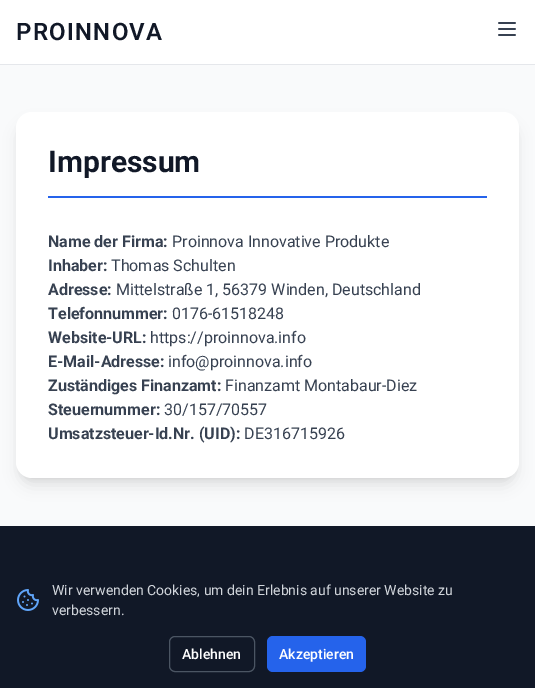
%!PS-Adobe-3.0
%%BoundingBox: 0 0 535 688
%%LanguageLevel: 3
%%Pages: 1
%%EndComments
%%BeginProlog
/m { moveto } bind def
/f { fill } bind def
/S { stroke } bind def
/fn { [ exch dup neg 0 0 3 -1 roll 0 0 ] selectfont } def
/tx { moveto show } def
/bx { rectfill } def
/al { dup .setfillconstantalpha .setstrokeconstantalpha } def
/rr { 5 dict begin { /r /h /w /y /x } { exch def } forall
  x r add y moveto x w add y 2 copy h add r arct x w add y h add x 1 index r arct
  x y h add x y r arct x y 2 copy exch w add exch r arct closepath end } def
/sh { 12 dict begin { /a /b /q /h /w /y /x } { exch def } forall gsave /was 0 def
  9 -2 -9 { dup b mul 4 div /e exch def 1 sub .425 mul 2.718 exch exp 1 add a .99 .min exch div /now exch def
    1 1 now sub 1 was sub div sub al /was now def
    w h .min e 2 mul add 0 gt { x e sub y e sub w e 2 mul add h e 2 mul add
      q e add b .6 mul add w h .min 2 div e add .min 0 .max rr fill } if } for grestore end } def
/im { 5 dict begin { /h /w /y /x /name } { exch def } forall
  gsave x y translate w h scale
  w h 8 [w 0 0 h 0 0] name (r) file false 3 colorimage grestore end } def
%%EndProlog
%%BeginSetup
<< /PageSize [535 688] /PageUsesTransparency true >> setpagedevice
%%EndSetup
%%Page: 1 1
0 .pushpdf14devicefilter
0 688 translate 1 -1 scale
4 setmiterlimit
1 setgray
0 0 535 688 bx
0.898 0.906 0.922 setrgbcolor
0 64 535 1 bx
/Roboto-SemiBold 24 fn
0.067 0.094 0.153 setrgbcolor
16 40 m 1.25 0 (PROINNOVA) ashow
(image0.raw) 498 22 18 14 im
0.976 0.98 0.984 setrgbcolor
0 65 535 461 bx
0 setgray
20 120 495 358 12 3 0.1 sh
19 125 497 360 13 7.5 0.1 sh
1 setgray
16 112 503 366 16 rr f
0.145 0.388 0.922 setrgbcolor
48 196 439 2 bx
/Roboto-Bold 30 fn
0.067 0.094 0.153 setrgbcolor
(Impressum) 48 172 tx
/Roboto-Bold 16 fn
0.216 0.255 0.318 setrgbcolor
(Name der Firma:) 48 247 tx
/Roboto-Regular 16 fn
(Proinnova Innovative Produkte) 172 247 tx
/Roboto-Bold 16 fn
(Inhaber:) 48 271 tx
/Roboto-Regular 16 fn
(Thomas Schulten) 111 271 tx
/Roboto-Bold 16 fn
(Adresse:) 48 295 tx
/Roboto-Regular 16 fn
(Mittelstraße 1, 56379 Winden, Deutschland) 116 295 tx
/Roboto-Bold 16 fn
(Telefonnummer:) 48 319 tx
/Roboto-Regular 16 fn
(0176-61518248) 172 319 tx
/Roboto-Bold 16 fn
(Website-URL:) 48 343 tx
/Roboto-Regular 16 fn
(https://proinnova.info) 150 343 tx
/Roboto-Bold 16 fn
(E-Mail-Adresse:) 48 367 tx
/Roboto-Regular 16 fn
(info@proinnova.info) 168 367 tx
/Roboto-Bold 16 fn
(Zuständiges Finanzamt:) 48 391 tx
/Roboto-Regular 16 fn
(Finanzamt Montabaur-Diez) 225 391 tx
/Roboto-Bold 16 fn
(Steuernummer:) 48 415 tx
/Roboto-Regular 16 fn
(30/157/70557) 164 415 tx
/Roboto-Bold 16 fn
(Umsatzsteuer-Id.Nr. \(UID\):) 48 439 tx
/Roboto-Regular 16 fn
(DE316715926) 244 439 tx
0.067 0.094 0.153 setrgbcolor
0 526 535 162 bx
(image1.raw) 17 589 22 22 im
/Roboto-Regular 14 fn
0.82 0.835 0.859 setrgbcolor
(Wir verwenden Cookies, um dein Erlebnis auf unserer Website zu) 52 595 tx
(verbessern.) 52 615 tx
0.294 0.333 0.388 setrgbcolor
169.5 636.5 85 35 5.5 rr S
/Roboto-Medium 14 fn
1 setgray
(Ablehnen) 182 659 tx
0.145 0.388 0.922 setrgbcolor
267 636 99 36 6 rr f
1 setgray
(Akzeptieren) 279 659 tx
.poppdf14devicefilter showpage
%%EOF
